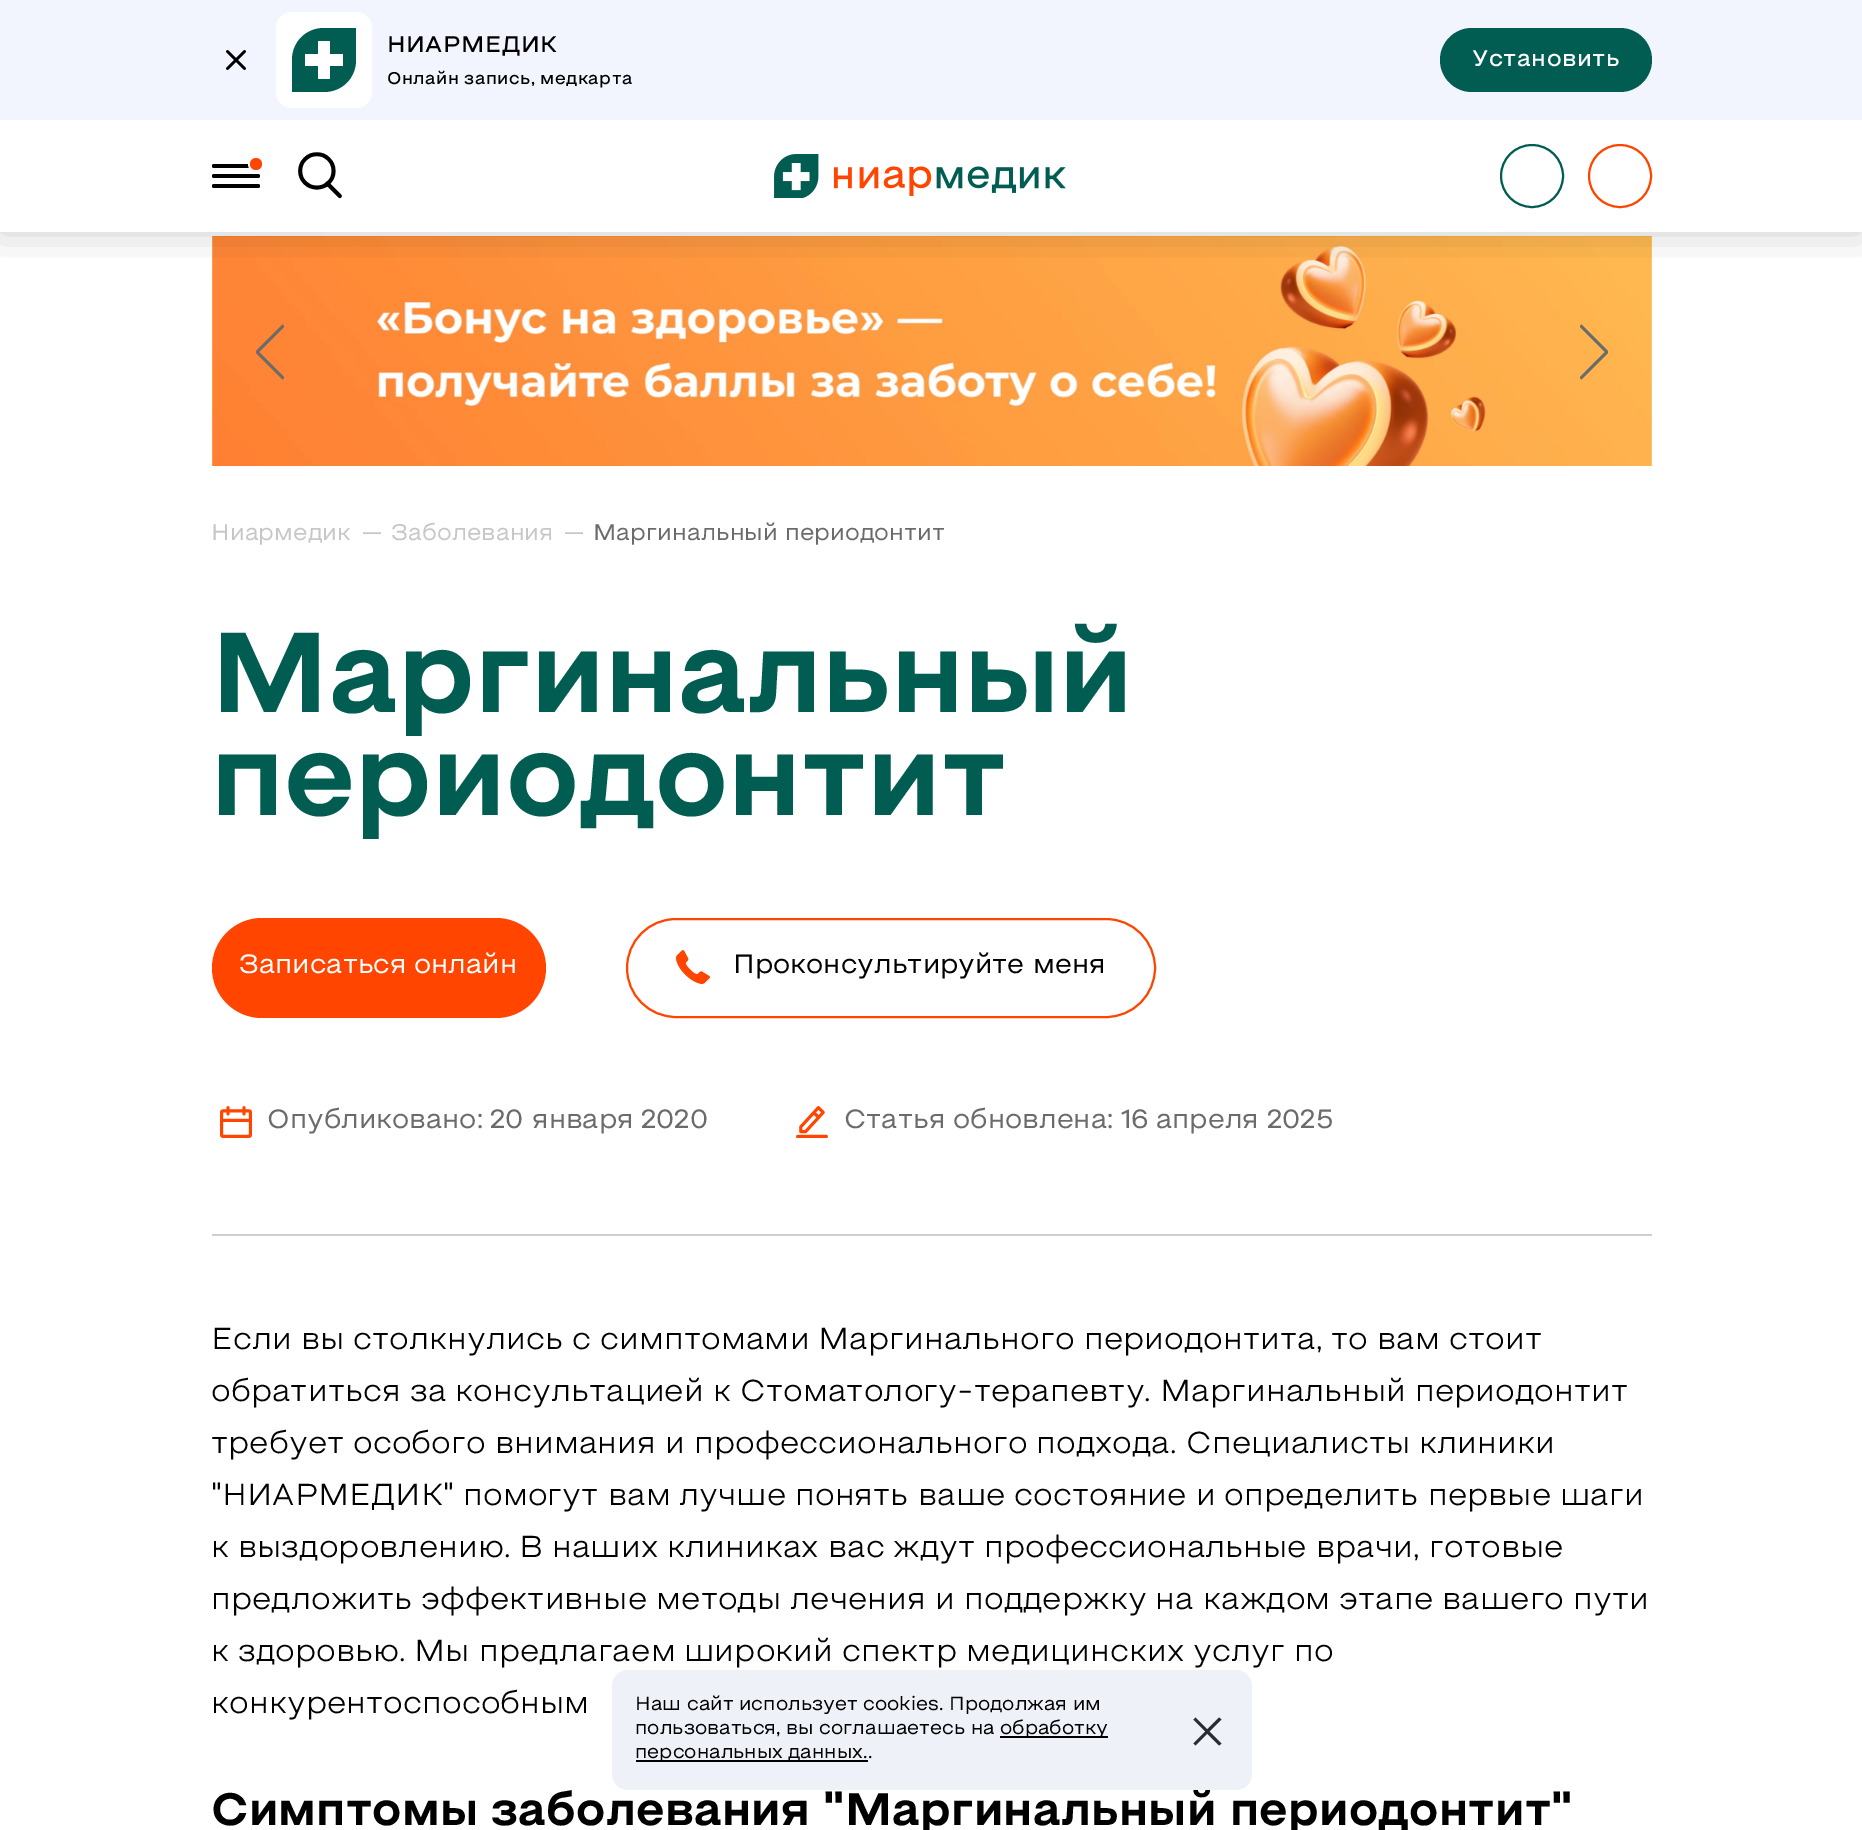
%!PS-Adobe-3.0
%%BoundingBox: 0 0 1862 1830
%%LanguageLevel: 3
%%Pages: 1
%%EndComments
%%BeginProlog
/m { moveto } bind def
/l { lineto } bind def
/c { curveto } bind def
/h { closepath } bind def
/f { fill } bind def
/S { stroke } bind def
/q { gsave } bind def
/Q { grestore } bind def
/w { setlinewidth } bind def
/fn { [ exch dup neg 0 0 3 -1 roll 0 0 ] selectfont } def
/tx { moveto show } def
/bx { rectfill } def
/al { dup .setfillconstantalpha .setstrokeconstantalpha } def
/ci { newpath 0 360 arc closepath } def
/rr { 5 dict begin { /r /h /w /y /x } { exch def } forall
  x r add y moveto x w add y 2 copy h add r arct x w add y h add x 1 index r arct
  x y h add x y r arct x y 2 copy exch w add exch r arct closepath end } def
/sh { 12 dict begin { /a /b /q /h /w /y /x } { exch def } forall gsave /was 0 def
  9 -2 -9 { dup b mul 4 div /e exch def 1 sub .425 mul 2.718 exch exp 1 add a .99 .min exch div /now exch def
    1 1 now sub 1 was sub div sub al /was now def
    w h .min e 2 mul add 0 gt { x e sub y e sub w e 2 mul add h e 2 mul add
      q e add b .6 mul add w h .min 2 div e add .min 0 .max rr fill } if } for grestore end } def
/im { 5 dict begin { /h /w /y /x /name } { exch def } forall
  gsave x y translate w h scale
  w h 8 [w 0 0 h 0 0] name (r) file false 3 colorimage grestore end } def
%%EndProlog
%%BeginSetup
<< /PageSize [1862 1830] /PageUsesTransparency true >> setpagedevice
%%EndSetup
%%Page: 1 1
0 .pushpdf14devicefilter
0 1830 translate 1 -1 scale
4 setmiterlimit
1 setgray
0 0 1862 1830 bx
(image3.raw) 212 236 1440 230 im
q
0 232 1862 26 rectclip
0 setgray
0 0 1862 232 0 20 0.2 sh
Q
0.949 0.961 0.992 setrgbcolor
0 0 1862 120 bx
(image0.raw) 226 50 20 20 im
1 setgray
276 12 96 96 16 rr f
0.004 0.365 0.322 setrgbcolor
356 60 m 356 78 342 92 324 92 c 292 92 l 292 60 l 292 42 306 28 324 28 c 356 28 l h 318 41 m 318 54 l 305 54 l 305 66 l 318 66 l 318 79 l 330 79 l 330 66 l 343 66 l 343 54 l 330 54 l 330 41 l h f
/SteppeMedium-Medium 24 fn
0 setgray
387 52 m 0.5 0 (НИАРМЕДИК) ashow
/SteppeMedium-Medium 18 fn
387 84 m 0.5 0 (Онлайн) ashow
464 84 m 0.5 0 (запись,) ashow
540 84 m 0.5 0 (медкарта) ashow
0.004 0.365 0.322 setrgbcolor
1440 28 212 64 32 rr f
/SteppeMedium-Medium 24 fn
1 setgray
1472 66 m 0.5 0 (Установить) ashow
0 setgray
212 164 48 4 2 rr f
1 setgray
256 164 8 ci f
1 0.271 0 setrgbcolor
256 164 6 ci f
0 setgray
212 174 48 4 2 rr f
212 184 48 4 2 rr f
(image1.raw) 298 152 44 47 im
(image2.raw) 774 154 292 44 im
0.004 0.365 0.322 setrgbcolor
2 w
1532 176 31 ci S
1 0.271 0 setrgbcolor
1620 176 31 ci S
(image4.raw) 256 324 28 56 im
(image5.raw) 1580 324 28 56 im
/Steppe-Regular 24 fn
0.78 setgray
(Ниармедик) 211 540 tx
(—) 361 540 tx
(Заболевания) 391 540 tx
(—) 563 540 tx
0.42 setgray
(Маргинальный) 593 540 tx
(периодонтит) 785 540 tx
/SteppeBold-Bold 120 fn
0.004 0.365 0.322 setrgbcolor
(Маргинальный) 211 712 tx
(периодонтит) 211 815 tx
1 0.271 0 setrgbcolor
212 918 334 100 50 rr f
/Steppe-Regular 28 fn
1 setgray
(Записаться) 239 973 tx
(онлайн) 414 973 tx
1 0.271 0 setrgbcolor
627 919 528 98 49 rr S
(image6.raw) 676 950 34 34 im
0 setgray
(Проконсультируйте) 733 973 tx
(меня) 1033 973 tx
(image7.raw) 220 1106 32 32 im
0.42 setgray
(Опубликовано:) 267 1128 tx
(20) 490 1128 tx
(января) 532 1128 tx
(2020) 641 1128 tx
(image8.raw) 796 1106 32 32 im
(Статья) 844 1128 tx
(обновлена:) 953 1128 tx
(16) 1121 1128 tx
(апреля) 1156 1128 tx
(2025) 1267 1128 tx
0.812 0.812 0.82 setrgbcolor
212 1234 1440 2 bx
/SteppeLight-Light 32 fn
0 setgray
(Если) 211 1349 tx
(вы) 301 1349 tx
(столкнулись) 353 1349 tx
(с) 572 1349 tx
(симптомами) 600 1349 tx
(Маргинального) 818 1349 tx
(периодонтита,) 1084 1349 tx
(то) 1331 1349 tx
(вам) 1377 1349 tx
(стоит) 1449 1349 tx
(обратиться) 211 1401 tx
(за) 410 1401 tx
(консультацией) 455 1401 tx
(к) 713 1401 tx
(Стоматологу-терапевту) 740 1401 tx
(.) 1144 1401 tx
(Маргинальный) 1160 1401 tx
(периодонтит) 1415 1401 tx
(требует) 211 1453 tx
(особого) 353 1453 tx
(внимания) 495 1453 tx
(и) 665 1453 tx
(профессионального) 694 1453 tx
(подхода.) 1036 1453 tx
(Специалисты) 1186 1453 tx
(клиники) 1419 1453 tx
("НИАРМЕДИК") 211 1505 tx
(помогут) 463 1505 tx
(вам) 608 1505 tx
(лучше) 679 1505 tx
(понять) 795 1505 tx
(ваше) 918 1505 tx
(состояние) 1014 1505 tx
(и) 1196 1505 tx
(определить) 1224 1505 tx
(первые) 1428 1505 tx
(шаги) 1560 1505 tx
(к) 211 1557 tx
(выздоровлению.) 238 1557 tx
(В) 519 1557 tx
(наших) 552 1557 tx
(клиниках) 667 1557 tx
(вас) 828 1557 tx
(ждут) 893 1557 tx
(профессиональные) 984 1557 tx
(врачи,) 1316 1557 tx
(готовые) 1429 1557 tx
(предложить) 211 1609 tx
(эффективные) 421 1609 tx
(методы) 656 1609 tx
(лечения) 790 1609 tx
(и) 935 1609 tx
(поддержку) 964 1609 tx
(на) 1155 1609 tx
(каждом) 1203 1609 tx
(этапе) 1339 1609 tx
(вашего) 1442 1609 tx
(пути) 1573 1609 tx
(к) 211 1661 tx
(здоровью.) 238 1661 tx
(Мы) 414 1661 tx
(предлагаем) 479 1661 tx
(широкий) 684 1661 tx
(спектр) 842 1661 tx
(медицинских) 966 1661 tx
(услуг) 1193 1661 tx
(по) 1294 1661 tx
(конкурентоспособным) 211 1713 tx
/SteppeBold-Bold 48 fn
211 1825 m 0.25 0 (Симптомы) ashow
491 1825 m 0.25 0 (заболевания) ashow
823 1825 m 0.25 0 ("Маргинальный) ashow
1230 1825 m 0.25 0 (периодонтит") ashow
0.9 al
0.929 0.941 0.973 setrgbcolor
612 1670 640 120 16 rr f
/Steppe-Regular 20 fn
1 al
0 setgray
(Наш) 635 1710 tx
(сайт) 687 1710 tx
(использует) 739 1710 tx
(cookies.) 863 1710 tx
(Продолжая) 949 1710 tx
(им) 1073 1710 tx
(пользоваться,) 635 1734 tx
(вы) 786 1734 tx
(соглашаетесь) 819 1734 tx
(на) 971 1734 tx
1000 1736 108 2 bx
(обработку) 1000 1734 tx
636 1760 232 2 bx
(персональных) 635 1758 tx
(данных.) 788 1758 tx
(.) 868 1758 tx
0.161 0.176 0.196 setrgbcolor
1193.5 1743.5 m 1219 1717.5 l 1221.5 1719.5 l 1195.5 1745.5 l h f
1195.5 1717.5 m 1221.5 1743.5 l 1219 1745.5 l 1193.5 1719.5 l h f
.poppdf14devicefilter showpage
%%EOF
